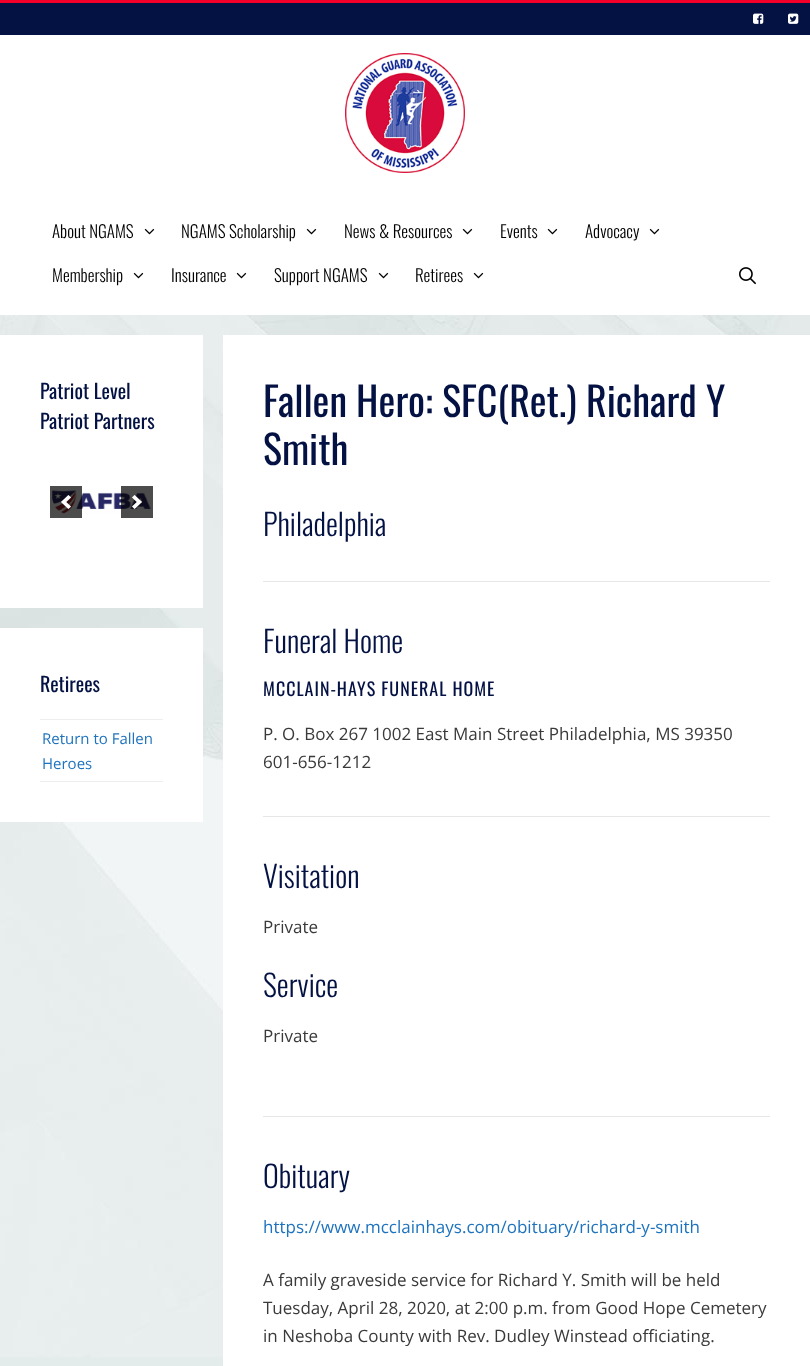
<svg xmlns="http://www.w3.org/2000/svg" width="810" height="1366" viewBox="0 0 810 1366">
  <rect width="100%" height="100%" fill="#e4ebeb"/>
  <image x="0" y="315" width="810" height="1043" href="img1.png"/>
  <rect x="0" y="3" width="810" height="32" fill="#031143"/>
  <rect x="0" y="0" width="810" height="3" fill="#f2002a"/>
  <image x="753" y="13" width="11" height="11" href="img2.png"/>
  <image x="788" y="13" width="11" height="11" href="img3.png"/>
  <rect x="0" y="35" width="810" height="280" fill="#ffffff"/>
  <image x="345" y="53" width="120" height="120" href="img4.png"/>
  <text x="52" y="238" font-family="Oswald" font-size="17" font-weight="300" fill="#000000">About NGAMS</text>
  <image x="144" y="228" width="11" height="7" href="img5.png"/>
  <text x="181" y="238" font-family="Oswald" font-size="17" font-weight="300" fill="#000000">NGAMS Scholarship</text>
  <image x="306" y="228" width="11" height="7" href="img5.png"/>
  <text x="344" y="238" font-family="Oswald" font-size="17" font-weight="300" fill="#000000">News &amp; Resources</text>
  <image x="462" y="228" width="11" height="7" href="img5.png"/>
  <text x="500" y="238" font-family="Oswald" font-size="17" font-weight="300" fill="#000000">Events</text>
  <image x="547" y="228" width="11" height="7" href="img5.png"/>
  <text x="585" y="238" font-family="Oswald" font-size="17" font-weight="300" fill="#000000">Advocacy</text>
  <image x="649" y="228" width="11" height="7" href="img5.png"/>
  <text x="52" y="282" font-family="Oswald" font-size="17" font-weight="300" fill="#000000">Membership</text>
  <image x="133" y="272" width="11" height="7" href="img5.png"/>
  <text x="171" y="282" font-family="Oswald" font-size="17" font-weight="300" fill="#000000">Insurance</text>
  <image x="236" y="272" width="11" height="7" href="img5.png"/>
  <text x="274" y="282" font-family="Oswald" font-size="17" font-weight="300" fill="#000000">Support NGAMS</text>
  <image x="378" y="272" width="11" height="7" href="img5.png"/>
  <text x="415" y="282" font-family="Oswald" font-size="17" font-weight="300" fill="#000000">Retirees</text>
  <image x="473" y="272" width="11" height="7" href="img5.png"/>
  <image x="739" y="267" width="17" height="18" href="img6.png"/>
  <rect x="0" y="335" width="203" height="273" fill="#ffffff"/>
  <text x="40" y="399" font-family="Oswald" font-size="20" fill="#031143">Patriot Level</text>
  <text x="40" y="429" font-family="Oswald" font-size="20" fill="#031143">Patriot Partners</text>
  <image x="52" y="490" width="100" height="24" href="img9.png"/>
  <rect x="50" y="486" width="32" height="32" fill="#000000" fill-opacity="0.7"/>
  <image x="61" y="495" width="10" height="14" href="img7.png"/>
  <rect x="121" y="486" width="32" height="32" fill="#000000" fill-opacity="0.7"/>
  <image x="132" y="495" width="10" height="14" href="img8.png"/>
  <rect x="0" y="628" width="203" height="194" fill="#ffffff"/>
  <text x="40" y="692" font-family="Oswald" font-size="20" fill="#031143">Retirees</text>
  <rect x="40" y="719" width="123" height="1" fill="#eeeeee"/>
  <rect x="40" y="781" width="123" height="1" fill="#eeeeee"/>
  <text x="42" y="744" font-family="Open Sans" font-size="15" fill="#1e73be">Return to Fallen</text>
  <text x="42" y="769" font-family="Open Sans" font-size="15" fill="#1e73be">Heroes</text>
  <rect x="223" y="335" width="587" height="1031" fill="#ffffff"/>
  <text x="263" y="417" font-family="Oswald" font-size="40" fill="#031143">Fallen Hero: SFC(Ret.) Richard Y</text>
  <text x="263" y="465" font-family="Oswald" font-size="40" fill="#031143">Smith</text>
  <text x="263" y="536" font-family="Oswald" font-size="30" font-weight="300" fill="#031143">Philadelphia</text>
  <rect x="263" y="581" width="507" height="1" fill="#e6e6e6"/>
  <text x="263" y="653" font-family="Oswald" font-size="30" font-weight="300" fill="#031143">Funeral Home</text>
  <text x="263" y="696" font-family="Oswald" font-size="18" letter-spacing="1" fill="#031143">MCCLAIN-HAYS FUNERAL HOME</text>
  <text x="263" y="740" font-family="Open Sans" font-size="17" fill="#3a3a3a">P. O. Box 267 1002 East Main Street Philadelphia, MS 39350</text>
  <text x="263" y="768" font-family="Open Sans" font-size="17" fill="#3a3a3a">601-656-1212</text>
  <rect x="263" y="816" width="507" height="1" fill="#e6e6e6"/>
  <text x="263" y="888" font-family="Oswald" font-size="30" font-weight="300" fill="#031143">Visitation</text>
  <text x="263" y="933" font-family="Open Sans" font-size="17" fill="#3a3a3a">Private</text>
  <text x="263" y="997" font-family="Oswald" font-size="30" font-weight="300" fill="#031143">Service</text>
  <text x="263" y="1042" font-family="Open Sans" font-size="17" fill="#3a3a3a">Private</text>
  <rect x="263" y="1116" width="507" height="1" fill="#e6e6e6"/>
  <text x="263" y="1188" font-family="Oswald" font-size="30" font-weight="300" fill="#031143">Obituary</text>
  <text x="263" y="1233" font-family="Open Sans" font-size="17" fill="#1e73be">https://www.mcclainhays.com/obituary/richard-y-smith</text>
  <text x="263" y="1286" font-family="Open Sans" font-size="17" fill="#3a3a3a">A family graveside service for Richard Y. Smith will be held</text>
  <text x="263" y="1314" font-family="Open Sans" font-size="17" fill="#3a3a3a">Tuesday, April 28, 2020, at 2:00 p.m. from Good Hope Cemetery</text>
  <text x="263" y="1342" font-family="Open Sans" font-size="17" fill="#3a3a3a">in Neshoba County with Rev. Dudley Winstead officiating.</text>
</svg>
